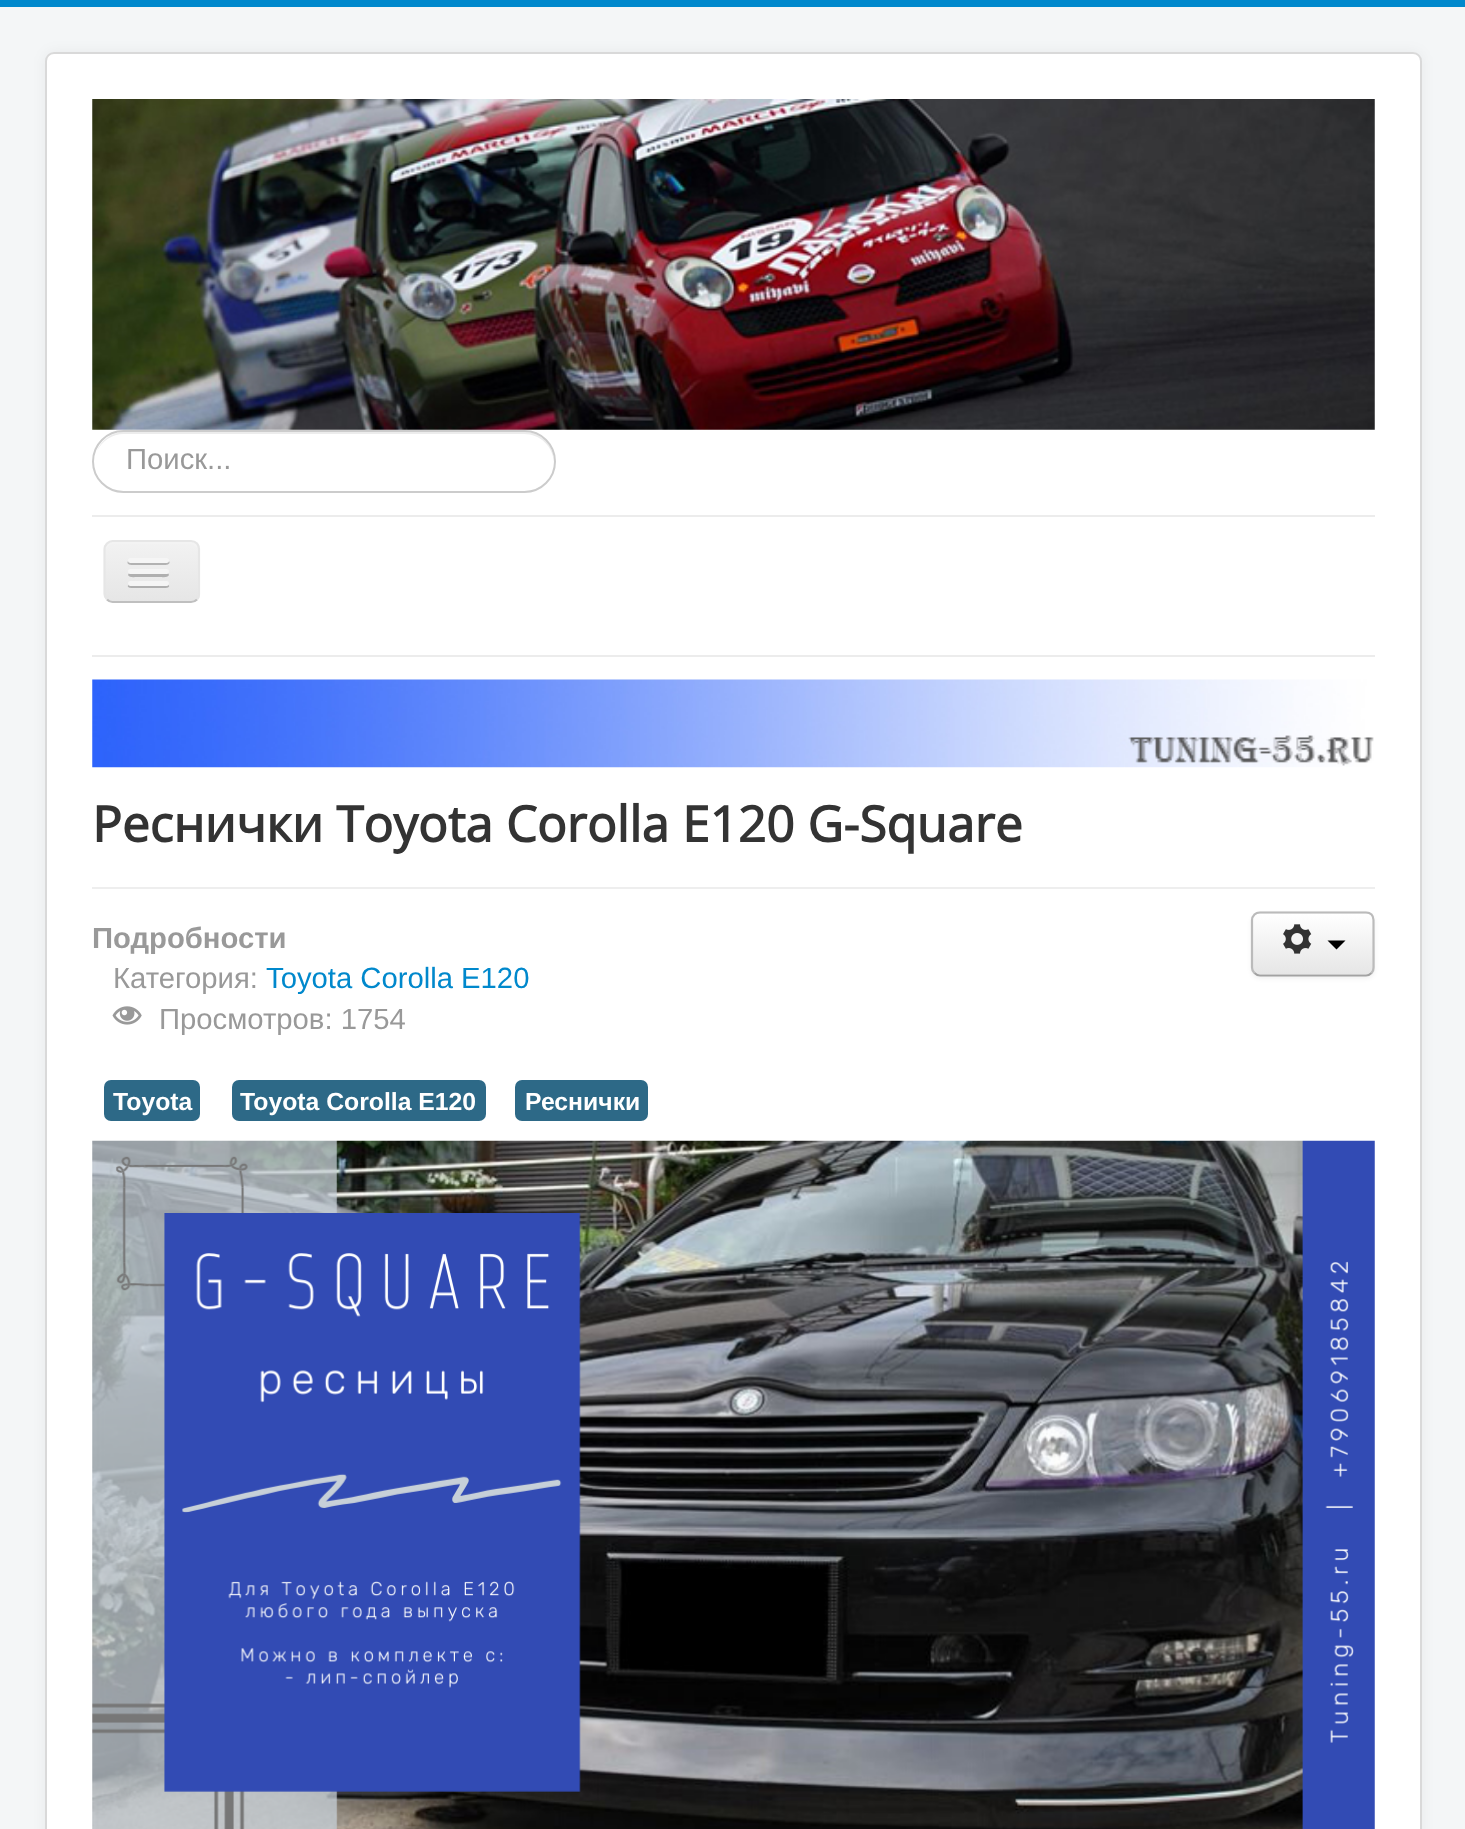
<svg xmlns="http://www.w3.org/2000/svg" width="1465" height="1829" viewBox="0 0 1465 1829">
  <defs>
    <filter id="blur1" x="-50%" y="-200%" width="200%" height="500%"><feGaussianBlur stdDeviation="7"/></filter>
    <clipPath id="clip1"><rect x="104" y="540" width="96" height="63" rx="9"/></clipPath>
    <linearGradient id="g1" gradientUnits="userSpaceOnUse" x1="152" y1="542" x2="152" y2="601"><stop offset="0" stop-color="#f2f2f2"/><stop offset="1" stop-color="#e6e6e6"/></linearGradient>
    <filter id="blur2" x="-50%" y="-200%" width="200%" height="500%"><feGaussianBlur stdDeviation="2"/></filter>
    <clipPath id="clip2"><rect x="1251" y="911" width="124" height="66" rx="9"/></clipPath>
    <linearGradient id="g2" gradientUnits="userSpaceOnUse" x1="1313" y1="914" x2="1313" y2="974"><stop offset="0" stop-color="#ffffff"/><stop offset="1" stop-color="#e6e6e6"/></linearGradient>
  </defs>
  <rect width="100%" height="100%" fill="#f4f6f7"/>
  <rect x="0" y="0" width="1465" height="7" fill="#0088cc"/>
  <rect x="45" y="52" width="1377" height="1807" rx="9" fill="#000000" fill-opacity="0.05" filter="url(#blur1)"/>
  <rect x="45" y="52" width="1377" height="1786" rx="9" fill="#ffffff"/>
  <rect x="46" y="53" width="1375" height="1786" rx="8" fill="none" stroke="#000000" stroke-opacity="0.15" stroke-width="2"/>
  <image x="92" y="99" width="1283" height="331" href="img1.png"/>
  <path d="M124 434H524C540 434 553 446 554 463V462C554 445 541 432 524 432H124C112 432 101 440 97 451C102 441 112 434 124 434Z" fill="#ececec"/>
  <rect x="93" y="431" width="462" height="61" rx="30.5" fill="none" stroke="#cccccc" stroke-width="2"/>
  <text x="126" y="469" font-family="Liberation Sans" font-size="29.25" fill="#999999">Поиск...</text>
  <rect x="92" y="515" width="1283" height="2" fill="#ececec"/>
  <rect x="92" y="655" width="1283" height="2" fill="#ececec"/>
  <g clip-path="url(#clip1)">
    <rect x="104" y="542" width="96" height="59" fill="url(#g1)"/>
  </g>
  <path d="M112 544H191C195 544 198 548 198 551C198 539 187 542 178 542H126C117 542 106 539 106 551C106 548 109 544 112 544Z" fill="#f3f3f3"/>
  <path d="M197 599.5C195.5 601 193.5 602 191 602H112.5C110.5 602 108.5 601 107 599.5" fill="none" stroke="#bfbfbf" stroke-width="2.2"/>
  <path d="M107 599.5C105.5 598 104.5 596 104.5 594V549C104.5 547 105.5 545 107 543.5C108.5 542 110.5 541 112.5 541H191C193.5 541 195.5 542 197 543.5C198.5 545 199 547 199 549V594C199 596 198.5 598 197 599.5" fill="none" stroke="#e6e6e6" stroke-width="2.2"/>
  <path d="M128 561C125 566 136 565 136 565H160C161 565 172 566 169 561C168 562 167 562 166 562H130C130 562 129 562 128 561Z" fill="#b2b2b2"/>
  <rect x="128" y="558" width="41" height="5" rx="2.5" fill="#f5f5f5"/>
  <path d="M129 573L128 575C129 578 135 577 136 577H160C162 577 168 578 169 575L168 573L167 574H130Z" fill="#b0b0b0"/>
  <rect x="128" y="569" width="41" height="5" rx="2.5" fill="#f5f5f5"/>
  <path d="M129 584C124 589 136 588 136 588H160C161 588 173 589 168 584L167 585H130Z" fill="#afafaf"/>
  <rect x="128" y="581" width="41" height="5" rx="2.5" fill="#f5f5f5"/>
  <image x="92" y="679" width="1282" height="89" href="img2.png"/>
  <rect x="92" y="887" width="1283" height="2" fill="#eeeeee"/>
  <text x="92" y="842" font-family="Open Sans" font-size="49.5" font-weight="bold" fill="#333333">Реснички Toyota Corolla E120 G-Square</text>
  <text x="92" y="948" font-family="Liberation Sans" font-size="29.25" font-weight="bold" fill="#999999">Подробности</text>
  <text x="113" y="988" font-family="Liberation Sans" font-size="29.25" fill="#999999">Категория:</text>
  <text x="266" y="988" font-family="Liberation Sans" font-size="29.25" fill="#0088cc">Toyota Corolla E120</text>
  <image x="112" y="1006" width="30" height="19" href="img3.png"/>
  <text x="159" y="1029" font-family="Liberation Sans" font-size="29.25" fill="#999999">Просмотров: 1754</text>
  <rect x="1251" y="914" width="124" height="65" rx="9" fill="#000000" fill-opacity="0.05" filter="url(#blur2)"/>
  <rect x="1251" y="911" width="124" height="66" rx="9" fill="#f5f5f5"/>
  <g clip-path="url(#clip2)">
    <rect x="1251" y="914" width="124" height="60" fill="url(#g2)"/>
  </g>
  <path d="M1260 916H1348C1375 916 1372 913 1372 938V971C1373 970 1373 968 1373 967V921C1373 917 1370 914 1366 914H1260C1256 914 1253 917 1253 921V922C1253 919 1256 916 1260 916Z" fill="#ffffff" fill-opacity="0.2"/>
  <path d="M1371.5 973C1370 974.5 1368 975.5 1366 975.5H1260C1258 975.5 1256 974.5 1254.5 973" fill="none" stroke="#a2a2a2" stroke-width="2.2"/>
  <path d="M1254.5 973C1253 971.5 1252 969.5 1252 967.5V920C1252 918 1253 916 1254.5 914.5C1256 913 1258 912.5 1260 912.5H1366C1368 912.5 1370 913 1371.5 914.5C1373 916 1373.5 918 1373.5 920V967.5C1373.5 969.5 1373 971.5 1371.5 973" fill="none" stroke="#bbbbbb" stroke-width="2.2"/>
  <image x="1283" y="924" width="29" height="30" href="img4.png"/>
  <path d="M1327.5 940.5H1345.5L1336.5 949.5Z" fill="#000000"/>
  <rect x="104" y="1080" width="96" height="41" rx="7" fill="#2d6987"/>
  <text x="113" y="1110" font-family="Liberation Sans" font-size="24.75" font-weight="bold" fill="#ffffff">Toyota</text>
  <rect x="232" y="1080" width="254" height="41" rx="7" fill="#2d6987"/>
  <text x="240" y="1110" font-family="Liberation Sans" font-size="24.75" font-weight="bold" fill="#ffffff">Toyota Corolla E120</text>
  <rect x="515" y="1080" width="133" height="41" rx="7" fill="#2d6987"/>
  <text x="525" y="1110" font-family="Liberation Sans" font-size="24.75" font-weight="bold" fill="#ffffff">Реснички</text>
  <image x="92" y="1140" width="1283" height="689" href="img5.png"/>
</svg>
